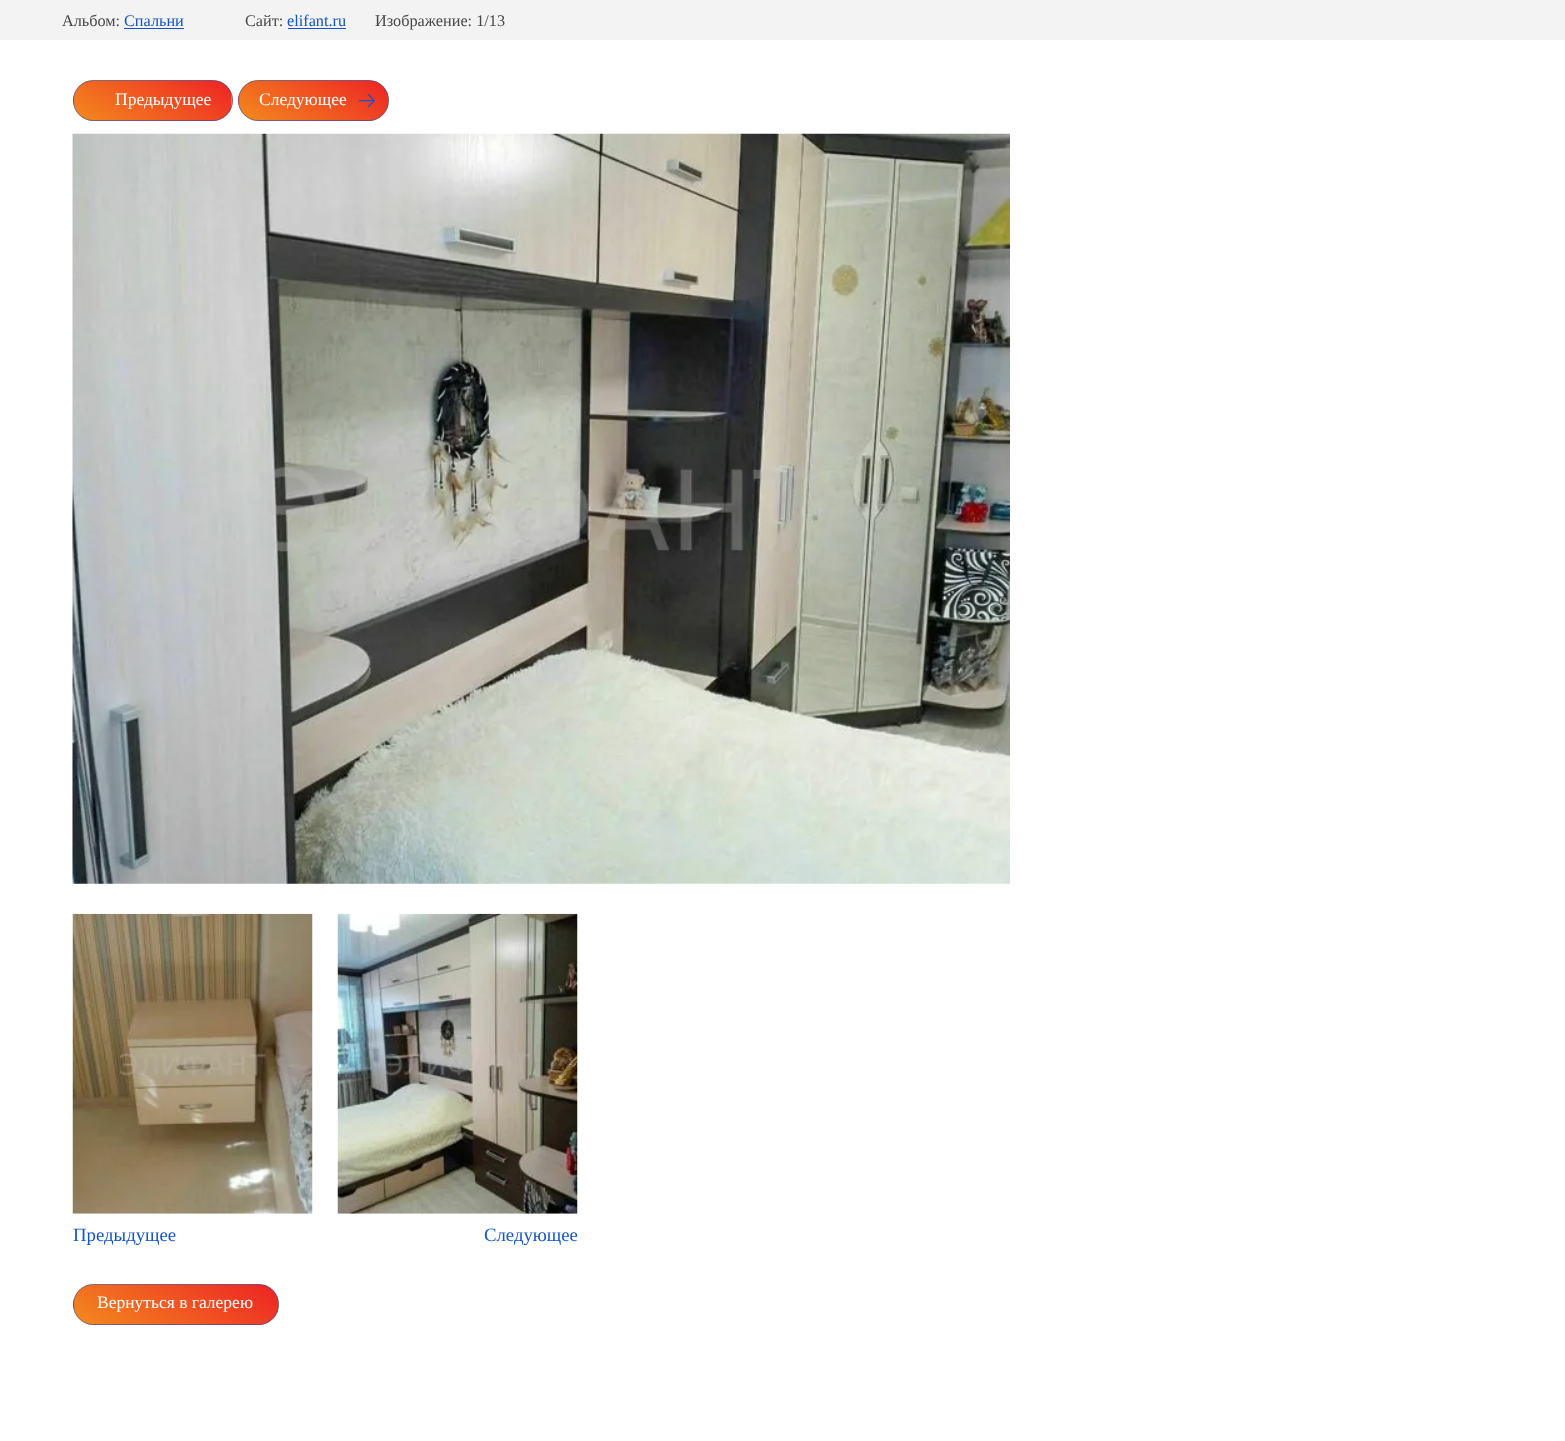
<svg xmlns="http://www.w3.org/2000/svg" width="1565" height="1441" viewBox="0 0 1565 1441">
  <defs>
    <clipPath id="clip1"><rect x="73" y="80" width="160" height="41" rx="20.5"/></clipPath>
    <linearGradient id="g1" gradientUnits="userSpaceOnUse" x1="183" y1="13" x2="122" y2="111"><stop offset="0" stop-color="#ed2324"/><stop offset="1" stop-color="#f48a1e"/></linearGradient>
    <linearGradient id="g2" gradientUnits="userSpaceOnUse" x1="26" y1="51" x2="-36" y2="150"><stop offset="0" stop-color="#ed2324"/><stop offset="1" stop-color="#f48a1e"/></linearGradient>
    <linearGradient id="g3" gradientUnits="userSpaceOnUse" x1="183" y1="51" x2="122" y2="150"><stop offset="0" stop-color="#ed2324"/><stop offset="1" stop-color="#f48a1e"/></linearGradient>
    <linearGradient id="g4" gradientUnits="userSpaceOnUse" x1="341" y1="51" x2="279" y2="150"><stop offset="0" stop-color="#ed2324"/><stop offset="1" stop-color="#f48a1e"/></linearGradient>
    <linearGradient id="g5" gradientUnits="userSpaceOnUse" x1="183" y1="90" x2="122" y2="189"><stop offset="0" stop-color="#ed2324"/><stop offset="1" stop-color="#f48a1e"/></linearGradient>
    <clipPath id="clip2"><rect x="238" y="80" width="151" height="41" rx="20.5"/></clipPath>
    <linearGradient id="g6" gradientUnits="userSpaceOnUse" x1="343" y1="15" x2="284" y2="109"><stop offset="0" stop-color="#ed2324"/><stop offset="1" stop-color="#f48a1e"/></linearGradient>
    <linearGradient id="g7" gradientUnits="userSpaceOnUse" x1="194" y1="53" x2="135" y2="148"><stop offset="0" stop-color="#ed2324"/><stop offset="1" stop-color="#f48a1e"/></linearGradient>
    <linearGradient id="g8" gradientUnits="userSpaceOnUse" x1="343" y1="53" x2="284" y2="148"><stop offset="0" stop-color="#ed2324"/><stop offset="1" stop-color="#f48a1e"/></linearGradient>
    <linearGradient id="g9" gradientUnits="userSpaceOnUse" x1="491" y1="53" x2="432" y2="148"><stop offset="0" stop-color="#ed2324"/><stop offset="1" stop-color="#f48a1e"/></linearGradient>
    <linearGradient id="g10" gradientUnits="userSpaceOnUse" x1="343" y1="92" x2="284" y2="187"><stop offset="0" stop-color="#ed2324"/><stop offset="1" stop-color="#f48a1e"/></linearGradient>
    <clipPath id="clip3"><rect x="73" y="1284" width="206" height="41" rx="20.5"/></clipPath>
    <linearGradient id="g11" gradientUnits="userSpaceOnUse" x1="213" y1="1206" x2="138" y2="1325"><stop offset="0" stop-color="#ed2324"/><stop offset="1" stop-color="#f48a1e"/></linearGradient>
    <linearGradient id="g12" gradientUnits="userSpaceOnUse" x1="9" y1="1245" x2="-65" y2="1364"><stop offset="0" stop-color="#ed2324"/><stop offset="1" stop-color="#f48a1e"/></linearGradient>
    <linearGradient id="g13" gradientUnits="userSpaceOnUse" x1="213" y1="1245" x2="138" y2="1364"><stop offset="0" stop-color="#ed2324"/><stop offset="1" stop-color="#f48a1e"/></linearGradient>
    <linearGradient id="g14" gradientUnits="userSpaceOnUse" x1="417" y1="1245" x2="342" y2="1364"><stop offset="0" stop-color="#ed2324"/><stop offset="1" stop-color="#f48a1e"/></linearGradient>
    <linearGradient id="g15" gradientUnits="userSpaceOnUse" x1="213" y1="1283" x2="138" y2="1403"><stop offset="0" stop-color="#ed2324"/><stop offset="1" stop-color="#f48a1e"/></linearGradient>
  </defs>
  <rect width="100%" height="100%" fill="#ffffff"/>
  <rect x="0" y="0" width="1565" height="40" fill="#f3f3f3"/>
  <text x="62" y="26" font-family="Liberation Serif" font-size="16.25" fill="#484848">Альбом:</text>
  <text x="124" y="26" font-family="Liberation Serif" font-size="16.25" fill="#1155cc">Спальни</text>
  <rect x="124" y="28" width="60" height="1" fill="#1155cc"/>
  <text x="245" y="26" font-family="Liberation Serif" font-size="16.25" fill="#484848">Сайт:</text>
  <text x="287" y="26" font-family="Liberation Serif" font-size="16.25" fill="#1155cc">elifant.ru</text>
  <rect x="288" y="28" width="58" height="1" fill="#1155cc"/>
  <text x="375" y="26" font-family="Liberation Serif" font-size="16.25" fill="#484848">Изображение: 1/13</text>
  <g clip-path="url(#clip1)">
    <rect x="87" y="80" width="132" height="1" fill="url(#g1)"/>
    <rect x="73" y="94" width="1" height="13" fill="url(#g2)"/>
    <rect x="74" y="81" width="157" height="39" fill="url(#g3)"/>
    <rect x="231" y="92" width="2" height="17" fill="url(#g4)"/>
    <rect x="87" y="120" width="132" height="1" fill="url(#g5)"/>
  </g>
  <rect x="73.5" y="80.5" width="159" height="40" rx="20" fill="none" stroke="#1155cc" stroke-opacity="0.5"/>
  <text x="115" y="105" font-family="Liberation Serif" font-size="17.5" fill="#ffffff">Предыдущее</text>
  <g clip-path="url(#clip2)">
    <rect x="252" y="80" width="123" height="1" fill="url(#g6)"/>
    <rect x="238" y="94" width="1" height="13" fill="url(#g7)"/>
    <rect x="239" y="81" width="149" height="39" fill="url(#g8)"/>
    <rect x="388" y="94" width="1" height="13" fill="url(#g9)"/>
    <rect x="252" y="120" width="123" height="1" fill="url(#g10)"/>
  </g>
  <rect x="238.5" y="80.5" width="150" height="40" rx="20" fill="none" stroke="#1155cc" stroke-opacity="0.5"/>
  <text x="259" y="105" font-family="Liberation Serif" font-size="17.5" fill="#ffffff">Следующее</text>
  <image x="359" y="94" width="16" height="14" href="img1.png"/>
  <image x="72" y="133" width="938" height="751" href="img2.png"/>
  <image x="72" y="913" width="241" height="301" href="img3.png"/>
  <text x="73" y="1241" font-family="Liberation Serif" font-size="18.75" fill="#1155cc">Предыдущее</text>
  <image x="337" y="913" width="241" height="301" href="img4.png"/>
  <text x="484" y="1241" font-family="Liberation Serif" font-size="18.75" fill="#1155cc">Следующее</text>
  <g clip-path="url(#clip3)">
    <rect x="87" y="1284" width="178" height="1" fill="url(#g11)"/>
    <rect x="73" y="1298" width="1" height="13" fill="url(#g12)"/>
    <rect x="74" y="1285" width="204" height="39" fill="url(#g13)"/>
    <rect x="278" y="1298" width="1" height="13" fill="url(#g14)"/>
    <rect x="87" y="1324" width="178" height="1" fill="url(#g15)"/>
  </g>
  <rect x="73.5" y="1284.5" width="205" height="40" rx="20" fill="none" stroke="#1155cc" stroke-opacity="0.5"/>
  <text x="97" y="1308" font-family="Liberation Serif" font-size="17.5" fill="#ffffff">Вернуться в галерею</text>
</svg>
